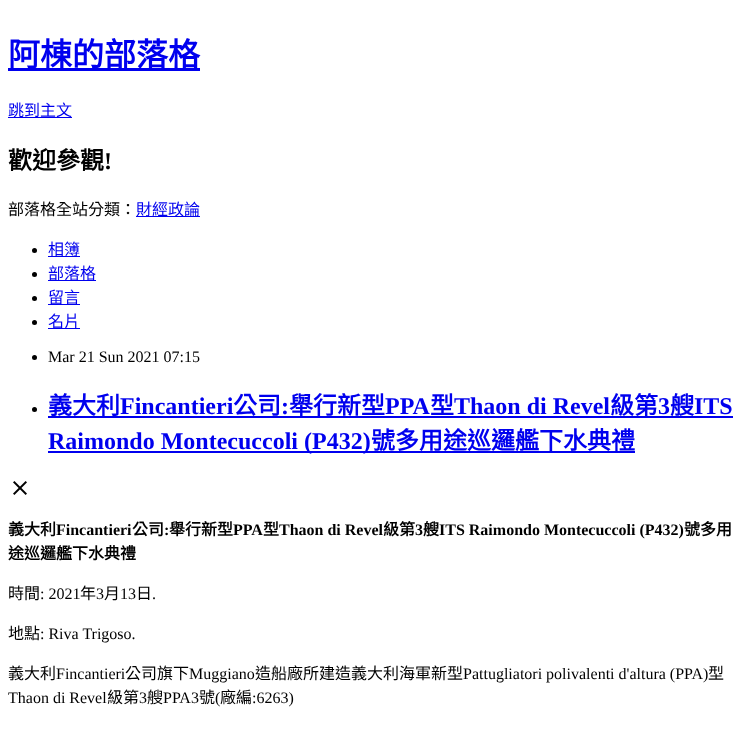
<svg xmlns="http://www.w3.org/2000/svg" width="741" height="736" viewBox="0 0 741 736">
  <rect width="100%" height="100%" fill="#ffffff"/>
  <rect x="8" y="68" width="192" height="3" fill="#0000ee"/>
  <text x="8" y="66" font-family="Noto Sans CJK TC" font-size="32" font-weight="bold" fill="#0000ee">阿棟的部落格</text>
  <rect x="8" y="117" width="64" height="1" fill="#0000ee"/>
  <text x="8" y="116" font-family="Noto Sans CJK TC" font-size="16" fill="#0000ee">跳到主文</text>
  <text x="8" y="169" font-family="Noto Sans CJK TC" font-size="24" font-weight="bold" fill="#000000">歡迎參觀</text>
  <text x="104" y="169" font-family="Liberation Serif" font-size="24" font-weight="bold" fill="#000000">!</text>
  <text x="8" y="215" font-family="Noto Sans CJK TC" font-size="16" fill="#000000">部落格全站分類：</text>
  <rect x="136" y="216" width="64" height="1" fill="#0000ee"/>
  <text x="136" y="215" font-family="Noto Sans CJK TC" font-size="16" fill="#0000ee">財經政論</text>
  <circle cx="34.5" cy="250.5" r="2.5" fill="#000000"/>
  <rect x="48" y="256" width="32" height="1" fill="#0000ee"/>
  <text x="48" y="255" font-family="Noto Sans CJK TC" font-size="16" fill="#0000ee">相簿</text>
  <circle cx="34.5" cy="274.5" r="2.5" fill="#000000"/>
  <rect x="48" y="280" width="48" height="1" fill="#0000ee"/>
  <text x="48" y="279" font-family="Noto Sans CJK TC" font-size="16" fill="#0000ee">部落格</text>
  <circle cx="34.5" cy="298.5" r="2.5" fill="#000000"/>
  <rect x="48" y="304" width="32" height="1" fill="#0000ee"/>
  <text x="48" y="303" font-family="Noto Sans CJK TC" font-size="16" fill="#0000ee">留言</text>
  <circle cx="34.5" cy="322.5" r="2.5" fill="#000000"/>
  <rect x="48" y="328" width="32" height="1" fill="#0000ee"/>
  <text x="48" y="327" font-family="Noto Sans CJK TC" font-size="16" fill="#0000ee">名片</text>
  <circle cx="34.5" cy="357.5" r="2.5" fill="#000000"/>
  <text x="48" y="362" font-family="Liberation Serif" font-size="16" fill="#000000">Mar 21 Sun 2021 07:15</text>
  <circle cx="34.5" cy="409.5" r="2.5" fill="#000000"/>
  <text x="48" y="414" font-family="Noto Sans CJK TC" font-size="24" font-weight="bold" fill="#0000ee">義大利</text>
  <text x="120" y="414" font-family="Liberation Serif" font-size="24" font-weight="bold" fill="#0000ee">Fincantieri</text>
  <text x="233" y="414" font-family="Noto Sans CJK TC" font-size="24" font-weight="bold" fill="#0000ee">公司</text>
  <text x="281" y="414" font-family="Liberation Serif" font-size="24" font-weight="bold" fill="#0000ee">:</text>
  <rect x="48" y="416" width="685" height="2" fill="#0000ee"/>
  <text x="289" y="414" font-family="Noto Sans CJK TC" font-size="24" font-weight="bold" fill="#0000ee">舉行新型</text>
  <text x="385" y="414" font-family="Liberation Serif" font-size="24" font-weight="bold" fill="#0000ee">PPA</text>
  <text x="430" y="414" font-family="Noto Sans CJK TC" font-size="24" font-weight="bold" fill="#0000ee">型</text>
  <text x="454" y="414" font-family="Liberation Serif" font-size="24" font-weight="bold" fill="#0000ee">Thaon di Revel</text>
  <text x="610" y="414" font-family="Noto Sans CJK TC" font-size="24" font-weight="bold" fill="#0000ee">級第</text>
  <text x="658" y="414" font-family="Liberation Serif" font-size="24" font-weight="bold" fill="#0000ee">3</text>
  <text x="670" y="414" font-family="Noto Sans CJK TC" font-size="24" font-weight="bold" fill="#0000ee">艘</text>
  <text x="694" y="414" font-family="Liberation Serif" font-size="24" font-weight="bold" fill="#0000ee">ITS</text>
  <rect x="48" y="451" width="587" height="2" fill="#0000ee"/>
  <text x="48" y="449" font-family="Liberation Serif" font-size="24" font-weight="bold" fill="#0000ee">Raimondo Montecuccoli (P432)</text>
  <text x="371" y="449" font-family="Noto Sans CJK TC" font-size="24" font-weight="bold" fill="#0000ee">號多用途巡邏艦下水典禮</text>
  <image x="13" y="481" width="14" height="14" href="img1.png"/>
  <text x="8" y="535" font-family="Noto Sans CJK TC" font-size="16" font-weight="bold" fill="#000000">義大利</text>
  <text x="56" y="535" font-family="Liberation Serif" font-size="16" font-weight="bold" fill="#000000">Fincantieri</text>
  <text x="132" y="535" font-family="Noto Sans CJK TC" font-size="16" font-weight="bold" fill="#000000">公司</text>
  <text x="164" y="535" font-family="Liberation Serif" font-size="16" font-weight="bold" fill="#000000">:</text>
  <text x="169" y="535" font-family="Noto Sans CJK TC" font-size="16" font-weight="bold" fill="#000000">舉行新型</text>
  <text x="233" y="535" font-family="Liberation Serif" font-size="16" font-weight="bold" fill="#000000">PPA</text>
  <text x="263" y="535" font-family="Noto Sans CJK TC" font-size="16" font-weight="bold" fill="#000000">型</text>
  <text x="279" y="535" font-family="Liberation Serif" font-size="16" font-weight="bold" fill="#000000">Thaon di Revel</text>
  <text x="383" y="535" font-family="Noto Sans CJK TC" font-size="16" font-weight="bold" fill="#000000">級第</text>
  <text x="415" y="535" font-family="Liberation Serif" font-size="16" font-weight="bold" fill="#000000">3</text>
  <text x="423" y="535" font-family="Noto Sans CJK TC" font-size="16" font-weight="bold" fill="#000000">艘</text>
  <text x="439" y="535" font-family="Liberation Serif" font-size="16" font-weight="bold" fill="#000000">ITS Raimondo Montecuccoli (P432)</text>
  <text x="684" y="535" font-family="Noto Sans CJK TC" font-size="16" font-weight="bold" fill="#000000">號多用</text>
  <text x="8" y="559" font-family="Noto Sans CJK TC" font-size="16" font-weight="bold" fill="#000000">途巡邏艦下水典禮</text>
  <text x="8" y="599" font-family="Noto Sans CJK TC" font-size="16" fill="#000000">時間</text>
  <text x="40" y="599" font-family="Liberation Serif" font-size="16" fill="#000000">: 2021</text>
  <text x="80" y="599" font-family="Noto Sans CJK TC" font-size="16" fill="#000000">年</text>
  <text x="96" y="599" font-family="Liberation Serif" font-size="16" fill="#000000">3</text>
  <text x="104" y="599" font-family="Noto Sans CJK TC" font-size="16" fill="#000000">月</text>
  <text x="120" y="599" font-family="Liberation Serif" font-size="16" fill="#000000">13</text>
  <text x="136" y="599" font-family="Noto Sans CJK TC" font-size="16" fill="#000000">日</text>
  <text x="152" y="599" font-family="Liberation Serif" font-size="16" fill="#000000">.</text>
  <text x="8" y="639" font-family="Noto Sans CJK TC" font-size="16" fill="#000000">地點</text>
  <text x="40" y="639" font-family="Liberation Serif" font-size="16" fill="#000000">: Riva Trigoso.</text>
  <text x="8" y="679" font-family="Noto Sans CJK TC" font-size="16" fill="#000000">義大利</text>
  <text x="56" y="679" font-family="Liberation Serif" font-size="16" fill="#000000">Fincantieri</text>
  <text x="125" y="679" font-family="Noto Sans CJK TC" font-size="16" fill="#000000">公司旗下</text>
  <text x="189" y="679" font-family="Liberation Serif" font-size="16" fill="#000000">Muggiano</text>
  <text x="255" y="679" font-family="Noto Sans CJK TC" font-size="16" fill="#000000">造船廠所建造義大利海軍新型</text>
  <text x="463" y="679" font-family="Liberation Serif" font-size="16" fill="#000000">Pattugliatori polivalenti d'altura (PPA)</text>
  <text x="708" y="679" font-family="Noto Sans CJK TC" font-size="16" fill="#000000">型</text>
  <text x="8" y="703" font-family="Liberation Serif" font-size="16" fill="#000000">Thaon di Revel</text>
  <text x="107" y="703" font-family="Noto Sans CJK TC" font-size="16" fill="#000000">級第</text>
  <text x="139" y="703" font-family="Liberation Serif" font-size="16" fill="#000000">3</text>
  <text x="147" y="703" font-family="Noto Sans CJK TC" font-size="16" fill="#000000">艘</text>
  <text x="163" y="703" font-family="Liberation Serif" font-size="16" fill="#000000">PPA3</text>
  <text x="199" y="703" font-family="Noto Sans CJK TC" font-size="16" fill="#000000">號</text>
  <text x="215" y="703" font-family="Liberation Serif" font-size="16" fill="#000000">(</text>
  <text x="220" y="703" font-family="Noto Sans CJK TC" font-size="16" fill="#000000">廠編</text>
  <text x="252" y="703" font-family="Liberation Serif" font-size="16" fill="#000000">:6263)</text>
</svg>
